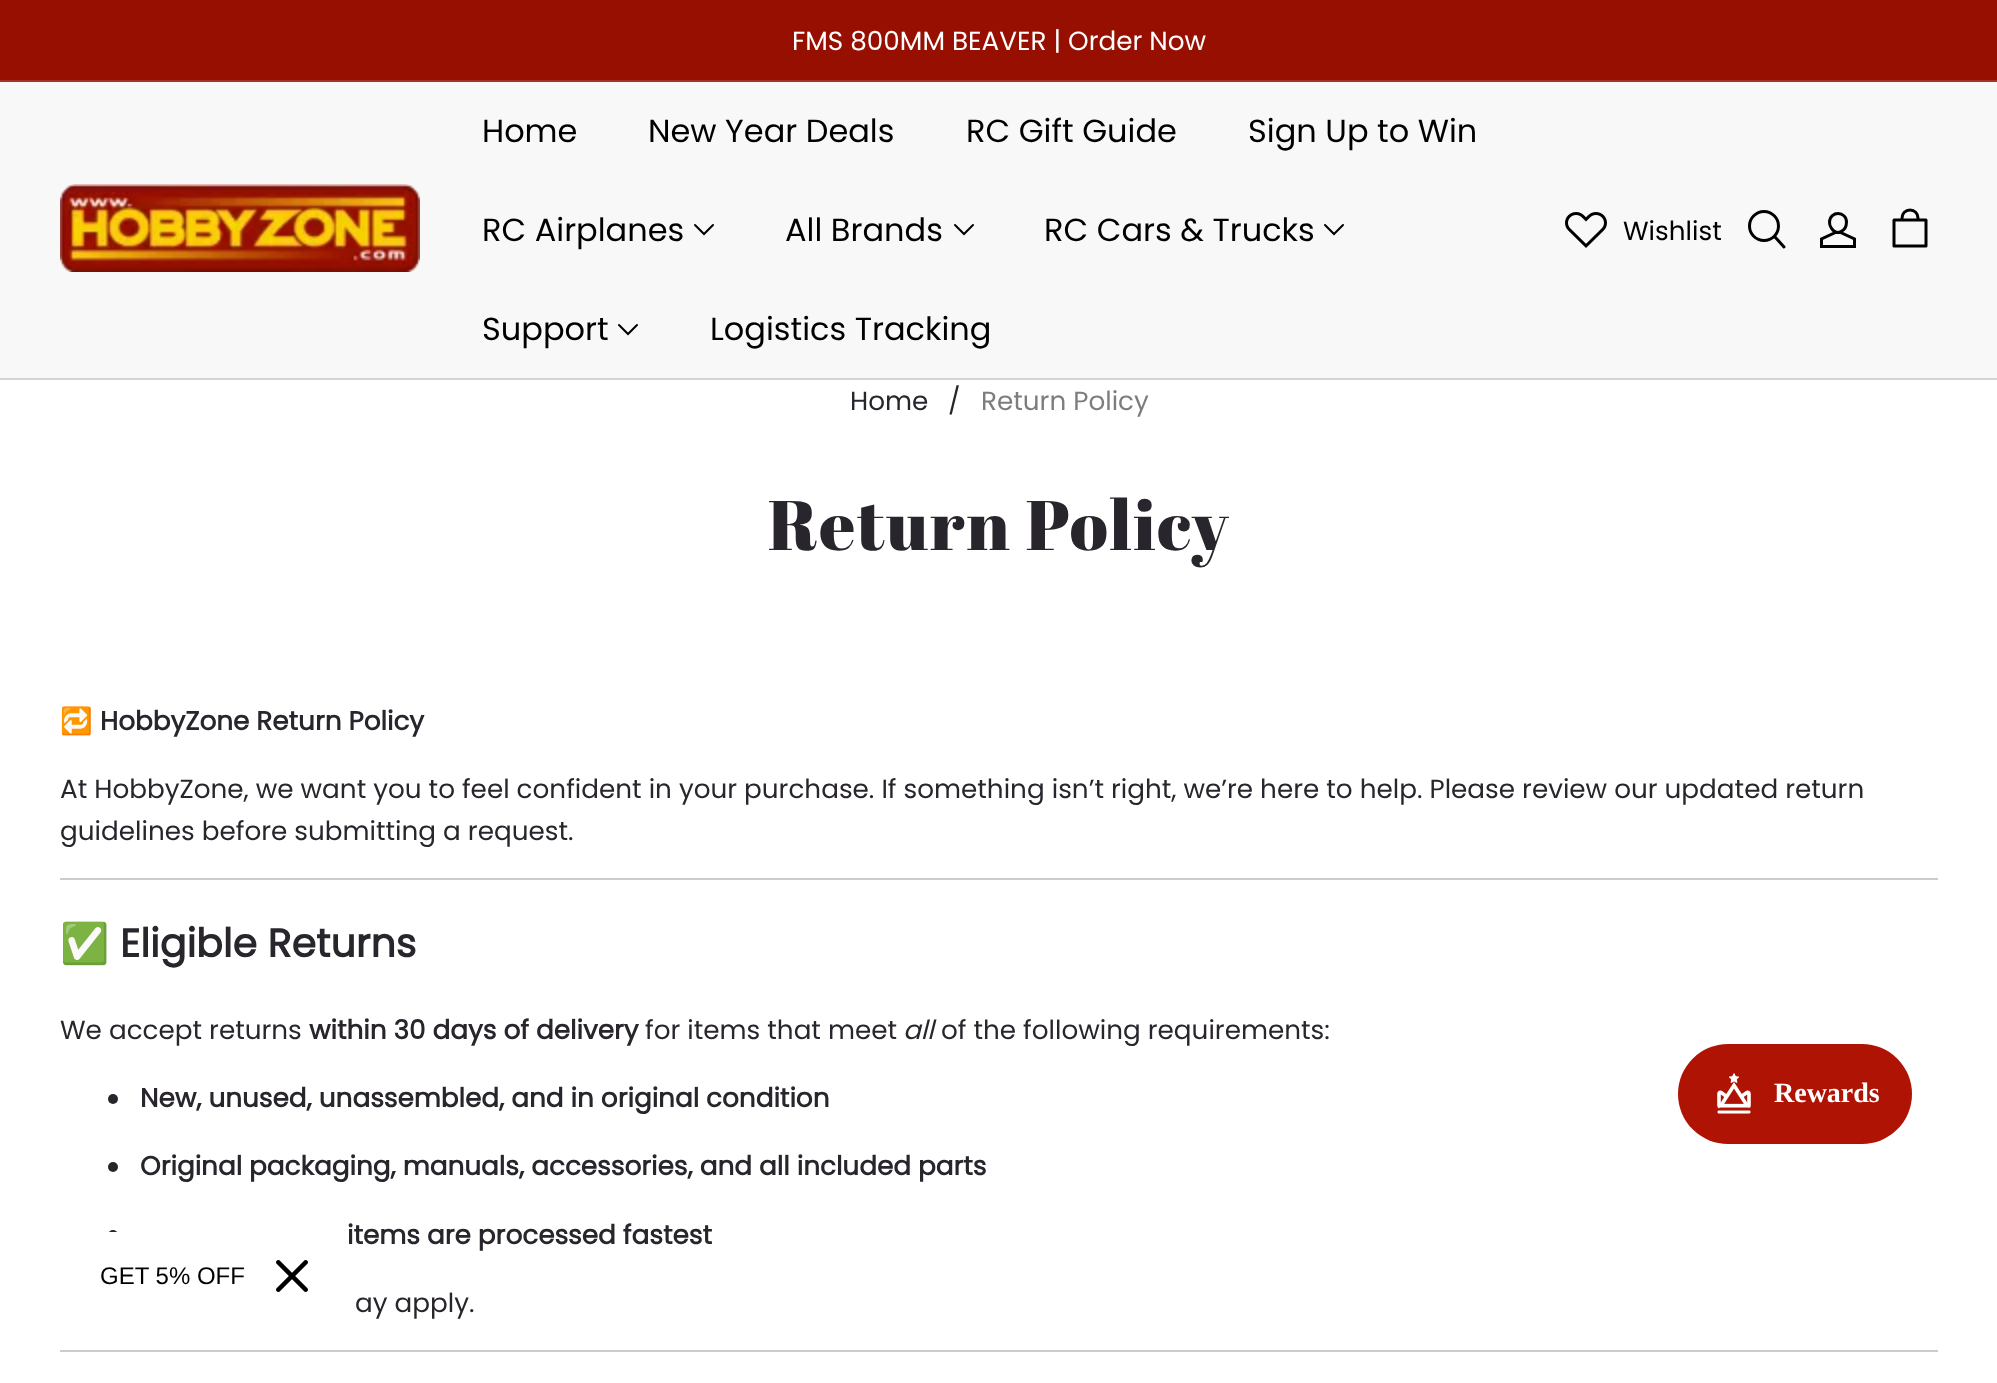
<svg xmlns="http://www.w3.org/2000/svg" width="1997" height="1383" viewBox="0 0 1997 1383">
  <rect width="100%" height="100%" fill="#ffffff"/>
  <rect x="0" y="0" width="1997" height="80" fill="#970f00"/>
  <text x="792" y="50" font-family="Poppins" font-size="26.25" fill="#ffffff">FMS 800MM BEAVER | Order Now</text>
  <rect x="0" y="80" width="1997" height="2" fill="#a73326"/>
  <rect x="0" y="82" width="1997" height="296" fill="#f8f8f8"/>
  <image x="60" y="184" width="360" height="88" href="img1.png"/>
  <text x="482" y="142" font-family="Poppins" font-size="32" fill="#000000">Home</text>
  <text x="648" y="142" font-family="Poppins" font-size="32" fill="#000000">New Year Deals</text>
  <text x="966" y="142" font-family="Poppins" font-size="32" fill="#000000">RC Gift Guide</text>
  <text x="1248" y="142" font-family="Poppins" font-size="32" fill="#000000">Sign Up to Win</text>
  <text x="482" y="241" font-family="Poppins" font-size="32" fill="#000000">RC Airplanes</text>
  <path d="M695 225L704 234L713 225" fill="none" stroke="#000000" stroke-width="2" stroke-linecap="round"/>
  <text x="785" y="241" font-family="Poppins" font-size="32" fill="#000000">All Brands</text>
  <path d="M955 225L964 234L973 225" fill="none" stroke="#000000" stroke-width="2" stroke-linecap="round"/>
  <text x="1044" y="241" font-family="Poppins" font-size="32" fill="#000000">RC Cars &amp; Trucks</text>
  <path d="M1325 225L1334 234L1343 225" fill="none" stroke="#000000" stroke-width="2" stroke-linecap="round"/>
  <text x="482" y="340" font-family="Poppins" font-size="32" fill="#000000">Support</text>
  <path d="M619 325L628 334L637 325" fill="none" stroke="#000000" stroke-width="2" stroke-linecap="round"/>
  <text x="710" y="340" font-family="Poppins" font-size="32" fill="#000000">Logistics Tracking</text>
  <image x="1565" y="212" width="42" height="36" href="img2.png"/>
  <text x="1623" y="240" font-family="Poppins" font-size="26.25" fill="#000000">Wishlist</text>
  <circle cx="1764" cy="226" r="14.5" fill="none" stroke="#000000" stroke-width="3"/>
  <path d="M1775 237L1784 247" fill="none" stroke="#000000" stroke-width="3" stroke-linecap="round"/>
  <path d="M1846.5 222C1846.5 231 1836.5 237 1831 227.5C1830 226 1829.5 224 1829.5 222C1830 210.5 1846.5 211 1846.5 222ZM1821.5 246.5V239L1835.5 232.5H1840.5L1854.5 239V246.5Z" fill="none" stroke="#000000" stroke-width="3"/>
  <path d="M1894 246V220H1926V246ZM1902 220V218C1902 213.5 1905.5 210 1910 210C1914.5 210 1918 213.5 1918 218V220" fill="none" stroke="#000000" stroke-width="3" stroke-linecap="round" stroke-linejoin="round"/>
  <rect x="0" y="378" width="1997" height="2" fill="#d3d3d3"/>
  <text x="850" y="410" font-family="Poppins" font-size="26.25" fill="#29252c">Home</text>
  <text x="948" y="410" font-family="Poppins" font-size="26.25" fill="#29252c">/</text>
  <text x="981" y="410" font-family="Poppins" font-size="26.25" fill="#7f7c80">Return Policy</text>
  <text x="768" y="550" font-family="Abril Fatface" font-size="70" letter-spacing="1.75" fill="#29252c">Return Policy</text>
  <text x="60" y="730" font-family="Noto Color Emoji" font-size="26.25" fill="#29252c">🔁</text>
  <text x="100" y="730" font-family="Poppins" font-size="26.25" font-weight="bold" fill="#29252c">HobbyZone Return Policy</text>
  <text x="60" y="798" font-family="Poppins" font-size="26.25" fill="#29252c">At HobbyZone, we want you to feel confident in your purchase. If something isn’t right, we’re here to help. Please review our updated return</text>
  <text x="60" y="840" font-family="Poppins" font-size="26.25" fill="#29252c">guidelines before submitting a request.</text>
  <rect x="60" y="878" width="1878" height="2" fill="#cccccc"/>
  <text x="60" y="957" font-family="Noto Color Emoji" font-size="39.5" font-weight="bold" fill="#29252c">✅</text>
  <text x="120" y="957" font-family="Poppins" font-size="39.5" font-weight="bold" fill="#29252c">Eligible Returns</text>
  <text x="60" y="1039" font-family="Poppins" font-size="26.25" fill="#29252c">We accept returns</text>
  <text x="309" y="1039" font-family="Poppins" font-size="26.25" font-weight="bold" fill="#29252c">within 30 days of delivery</text>
  <text x="645" y="1039" font-family="Poppins" font-size="26.25" fill="#29252c">for items that meet</text>
  <text x="903" y="1039" font-family="Poppins" font-size="26.25" font-style="italic" fill="#29252c">all</text>
  <text x="941" y="1039" font-family="Poppins" font-size="26.25" fill="#29252c">of the following requirements:</text>
  <circle cx="113" cy="1099" r="5" fill="#29252c"/>
  <text x="140" y="1107" font-family="Poppins" font-size="26.25" font-weight="bold" fill="#29252c">New, unused, unassembled, and in original condition</text>
  <circle cx="113" cy="1167" r="5" fill="#29252c"/>
  <text x="140" y="1175" font-family="Poppins" font-size="26.25" font-weight="bold" fill="#29252c">Original packaging, manuals, accessories, and all included parts</text>
  <circle cx="113" cy="1235" r="5" fill="#29252c"/>
  <text x="347" y="1244" font-family="Poppins" font-size="26.25" font-weight="bold" fill="#29252c">items are processed fastest</text>
  <text x="355" y="1312" font-family="Poppins" font-size="26.25" fill="#29252c">ay apply.</text>
  <rect x="60" y="1350" width="1878" height="2" fill="#cccccc"/>
  <rect x="1678" y="1044" width="234" height="100" rx="50" fill="#af1304"/>
  <image x="1717" y="1073" width="34" height="41" href="img3.png"/>
  <text x="1774" y="1102" font-family="Liberation Serif" font-size="28" font-weight="bold" fill="#ffffff">Rewards</text>
  <rect x="108" y="1232" width="10" height="8" fill="#ffffff"/>
  <text x="100" y="1284" font-family="Liberation Sans" font-size="24" fill="#000000">GET 5% OFF</text>
  <image x="276" y="1260" width="32" height="32" href="img4.png"/>
</svg>
